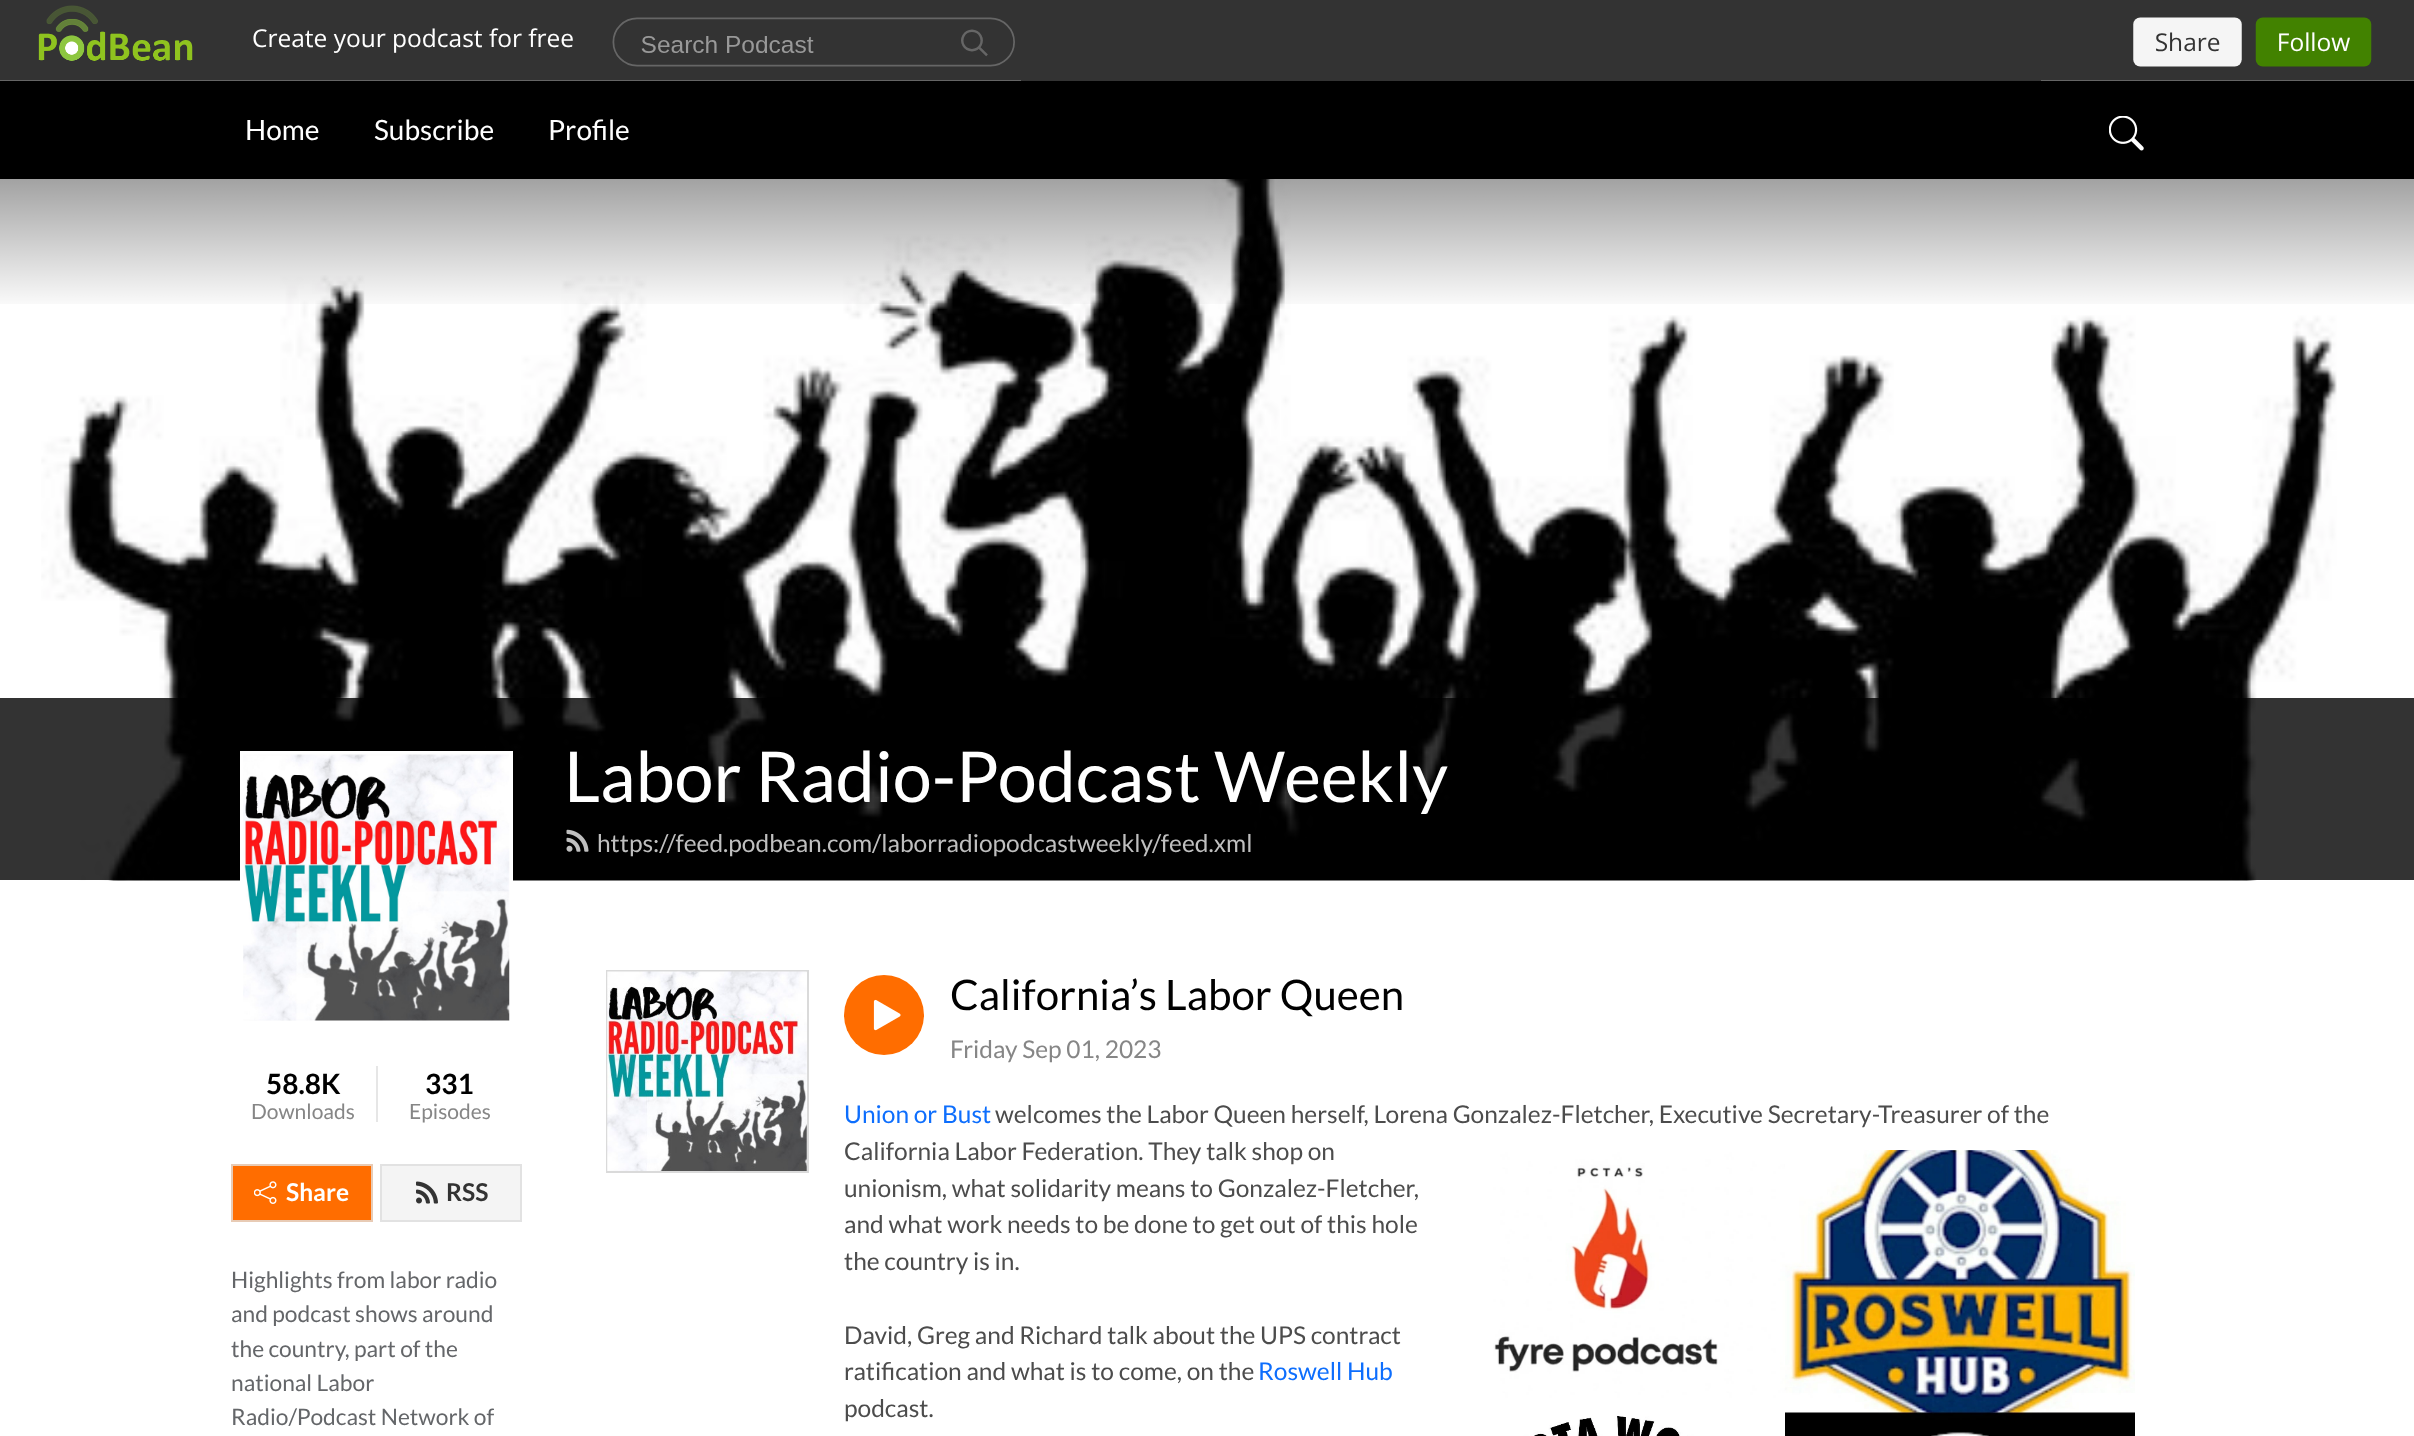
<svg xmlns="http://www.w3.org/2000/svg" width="2414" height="1436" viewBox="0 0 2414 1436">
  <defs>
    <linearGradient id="g1" gradientUnits="userSpaceOnUse" x1="1208" y1="312" x2="1208" y2="75"><stop offset="0" stop-color="#000000" stop-opacity="0"/><stop offset="1" stop-color="#000000" stop-opacity="0.65"/></linearGradient>
  </defs>
  <rect width="100%" height="100%" fill="#ffffff"/>
  <rect x="0" y="0" width="2414" height="5" fill="#333333"/>
  <image x="0" y="5" width="2414" height="76" href="img1.png"/>
  <rect x="0" y="81" width="2414" height="98" fill="#000000"/>
  <text x="245" y="140" font-family="Lato" font-size="28" fill="#ffffff">Home</text>
  <text x="374" y="140" font-family="Lato" font-size="28" fill="#ffffff">Subscribe</text>
  <text x="548" y="140" font-family="Lato" font-size="28" fill="#ffffff">Profile</text>
  <image x="2109" y="116" width="35" height="35" href="img2.png"/>
  <image x="41" y="179" width="2296" height="702" href="img3.png"/>
  <rect x="0" y="179" width="2414" height="125" fill="url(#g1)"/>
  <rect x="0" y="698" width="2414" height="182" fill="#000000" fill-opacity="0.8"/>
  <text x="564" y="802" font-family="Lato" font-size="70" fill="#ffffff">Labor Radio-Podcast Weekly</text>
  <image x="566" y="829" width="23" height="23" href="img4.png"/>
  <text x="597" y="852" font-family="Lato" font-size="24.5" fill="#bfbfbf">https://feed.podbean.com/laborradiopodcastweekly/feed.xml</text>
  <rect x="242" y="753" width="269" height="269" fill="none" stroke="#ffffff" stroke-width="4"/>
  <image x="243" y="754" width="267" height="267" href="img5.png"/>
  <text x="266" y="1094" font-family="Lato" font-size="28" font-weight="bold" fill="#000000">58.8K</text>
  <text x="251" y="1119" font-family="Lato" font-size="21" fill="#868686">Downloads</text>
  <rect x="376" y="1066" width="2" height="56" fill="#e6e6e6"/>
  <text x="425" y="1094" font-family="Lato" font-size="28" font-weight="bold" fill="#000000">331</text>
  <text x="409" y="1119" font-family="Lato" font-size="21" fill="#868686">Episodes</text>
  <rect x="232" y="1165" width="140" height="56" fill="#ff6d00" stroke="#e8cbb5" stroke-width="2"/>
  <image x="254" y="1181" width="23" height="23" href="img6.png"/>
  <text x="286" y="1201" font-family="Lato" font-size="24.5" font-weight="bold" fill="#ffffff">Share</text>
  <rect x="381" y="1165" width="140" height="56" fill="#f4f4f4" stroke="#e2e2e2" stroke-width="2"/>
  <image x="416" y="1181" width="22" height="23" href="img7.png"/>
  <text x="446" y="1201" font-family="Lato" font-size="24.5" font-weight="bold" fill="#333333">RSS</text>
  <text x="231" y="1288" font-family="Lato" font-size="22.75" fill="#646669">Highlights from labor radio</text>
  <text x="231" y="1322" font-family="Lato" font-size="22.75" fill="#646669">and podcast shows around</text>
  <text x="231" y="1357" font-family="Lato" font-size="22.75" fill="#646669">the country, part of the</text>
  <text x="231" y="1391" font-family="Lato" font-size="22.75" fill="#646669">national Labor</text>
  <text x="231" y="1425" font-family="Lato" font-size="22.75" fill="#646669">Radio/Podcast Network of</text>
  <rect x="607" y="971" width="201" height="201" fill="none" stroke="#dadada" stroke-width="2"/>
  <image x="607" y="971" width="200" height="200" href="img8.png"/>
  <circle cx="884" cy="1015" r="40" fill="#ff6d00"/>
  <image x="873" y="999" width="28" height="32" href="img9.png"/>
  <text x="950" y="1010" font-family="Lato" font-size="42" fill="#000000">California’s Labor Queen</text>
  <text x="950" y="1058" font-family="Lato" font-size="24.5" fill="#868686">Friday Sep 01, 2023</text>
  <text x="844" y="1123" font-family="Lato" font-size="24.5" fill="#0d6efd">Union or Bust</text>
  <text x="995" y="1123" font-family="Lato" font-size="24.5" fill="#4c4c4c">welcomes the Labor Queen herself, Lorena Gonzalez-Fletcher, Executive Secretary-Treasurer of the</text>
  <text x="844" y="1160" font-family="Lato" font-size="24.5" fill="#4c4c4c">California Labor Federation. They talk shop on</text>
  <image x="1493" y="1150" width="642" height="286" href="img10.png"/>
  <text x="844" y="1197" font-family="Lato" font-size="24.5" fill="#4c4c4c">unionism, what solidarity means to Gonzalez-Fletcher,</text>
  <text x="844" y="1233" font-family="Lato" font-size="24.5" fill="#4c4c4c">and what work needs to be done to get out of this hole</text>
  <text x="844" y="1270" font-family="Lato" font-size="24.5" fill="#4c4c4c">the country is in.</text>
  <text x="844" y="1344" font-family="Lato" font-size="24.5" fill="#4c4c4c">David, Greg and Richard talk about the UPS contract</text>
  <text x="844" y="1380" font-family="Lato" font-size="24.5" fill="#4c4c4c">ratification and what is to come, on the</text>
  <text x="1258" y="1380" font-family="Lato" font-size="24.5" fill="#0d6efd">Roswell Hub</text>
  <text x="844" y="1417" font-family="Lato" font-size="24.5" fill="#4c4c4c">podcast.</text>
</svg>
